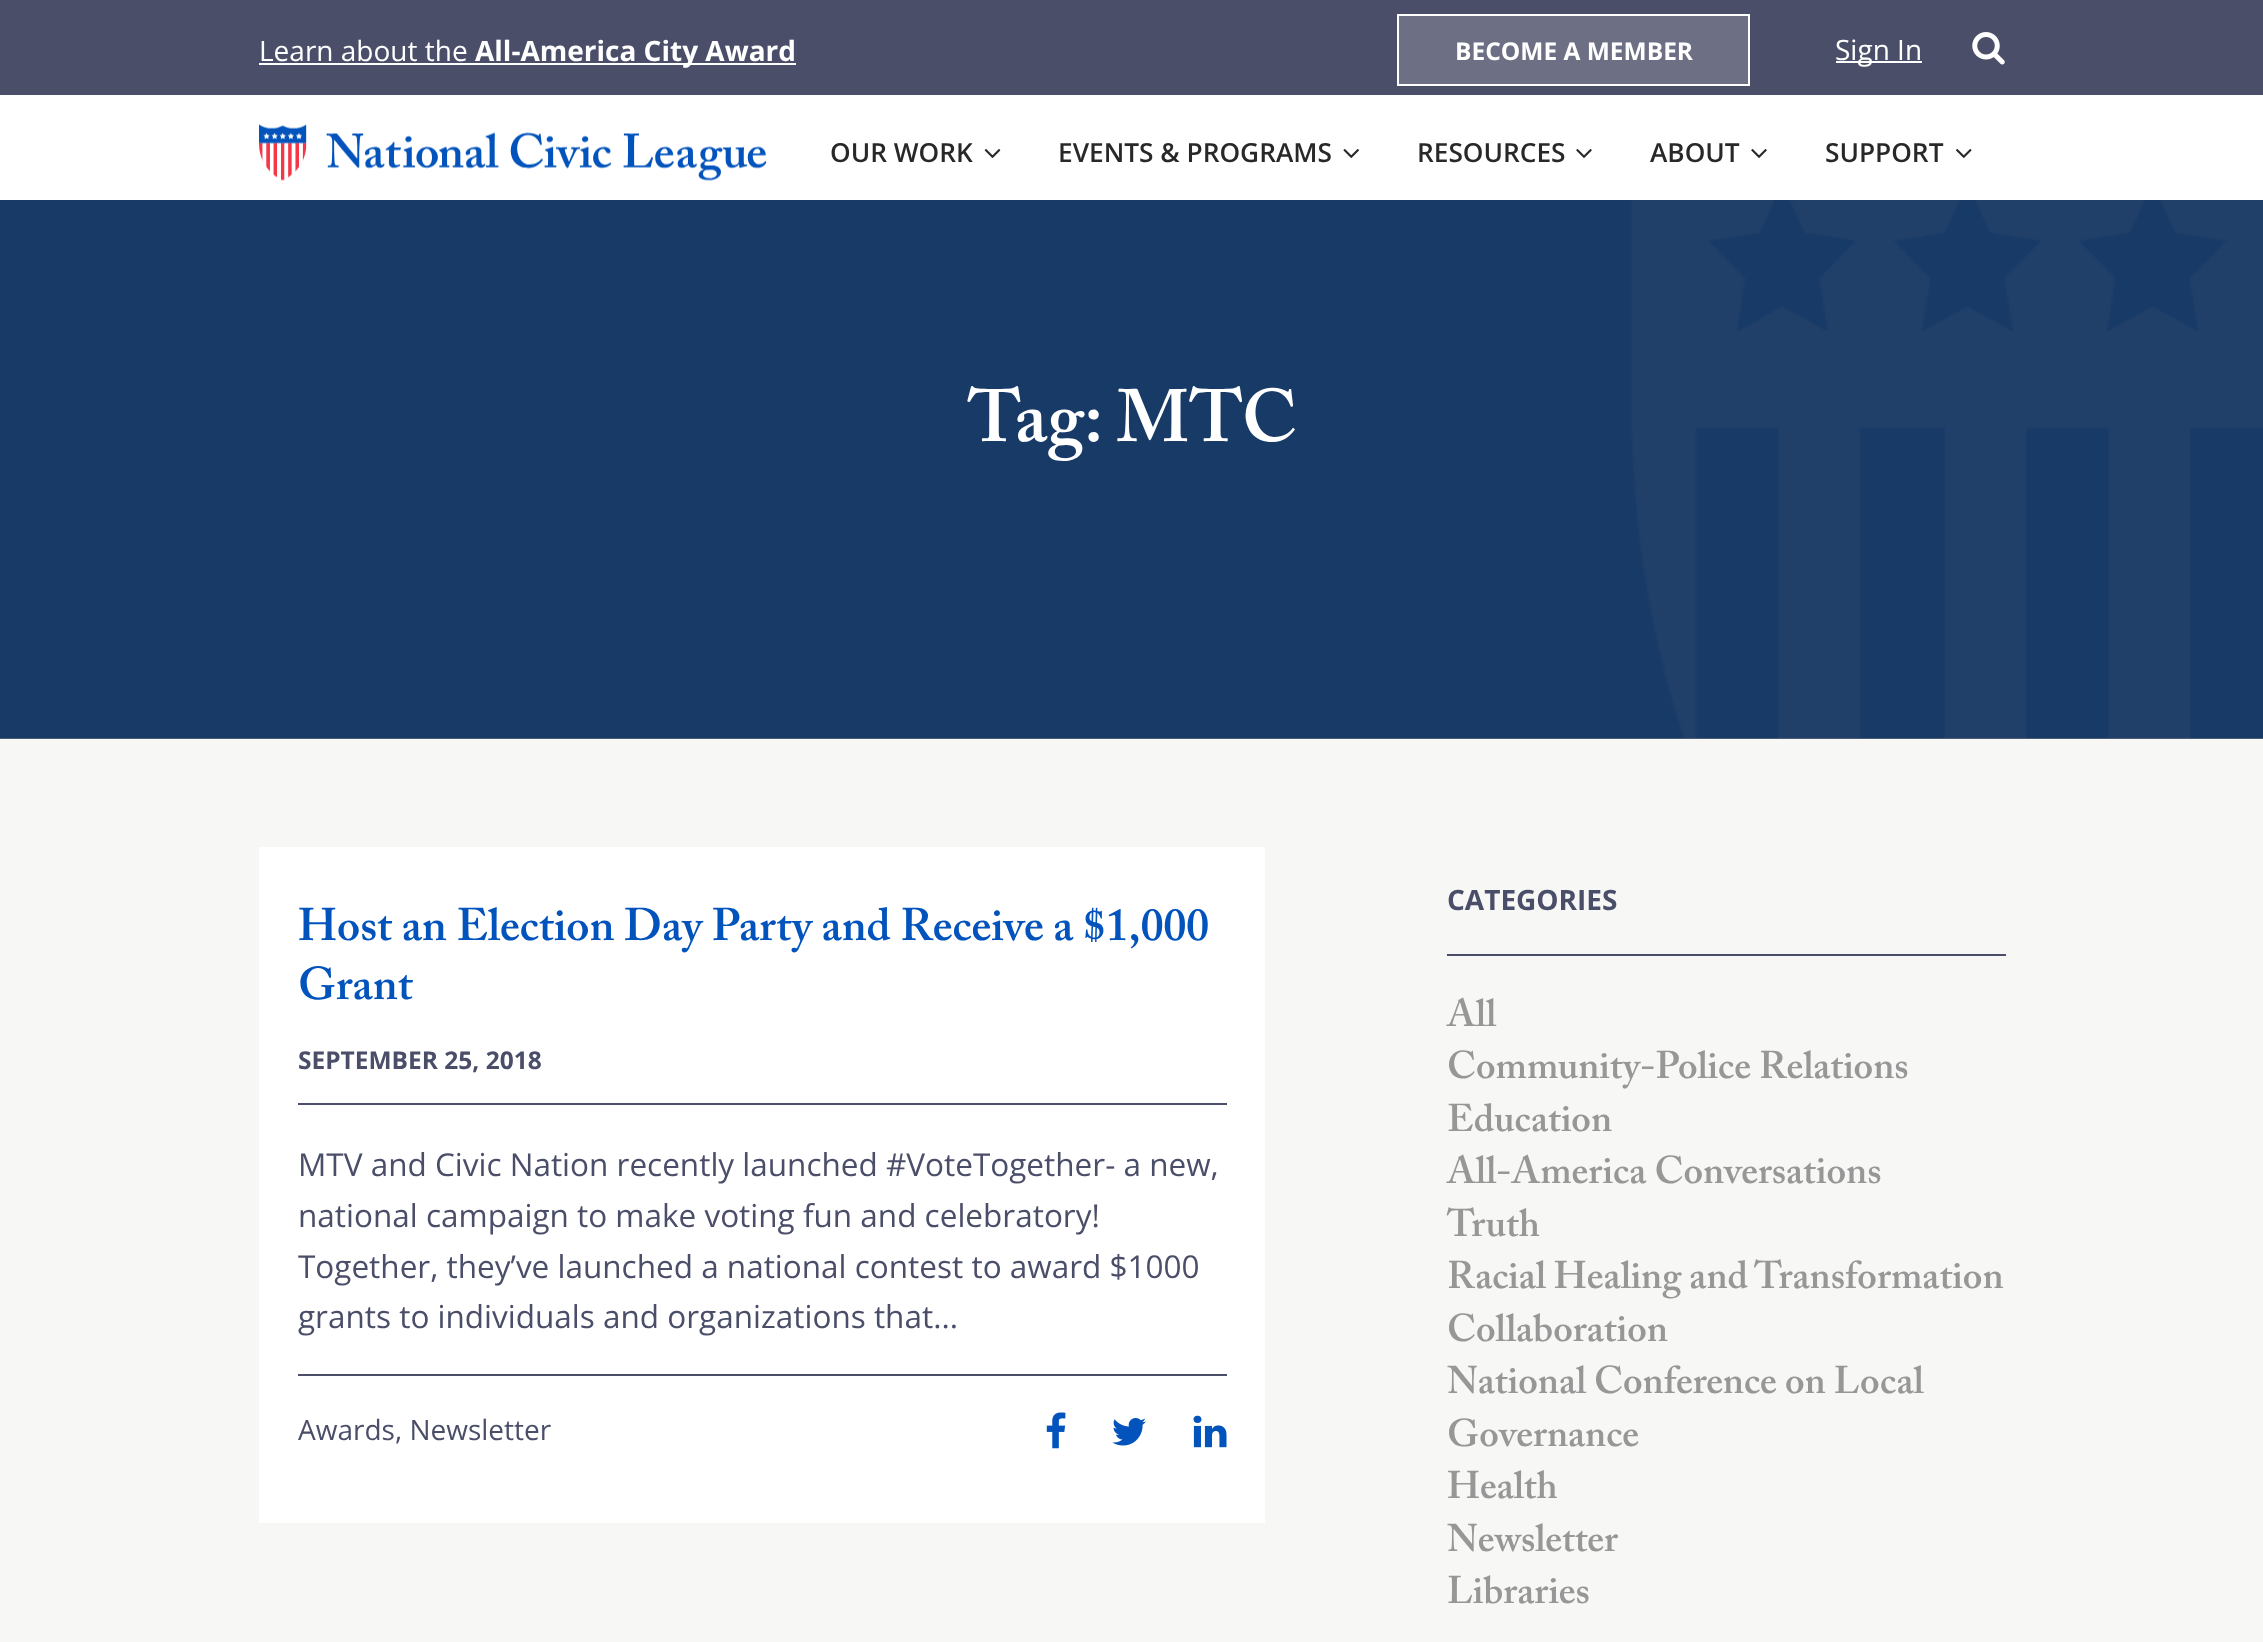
<svg xmlns="http://www.w3.org/2000/svg" width="2263" height="1642" viewBox="0 0 2263 1642">
  <rect width="100%" height="100%" fill="#f7f7f5"/>
  <rect x="0" y="738" width="2263" height="1" fill="#7f7f7f"/>
  <rect x="0" y="0" width="2263" height="95" fill="#4a4e69"/>
  <text x="259" y="61" font-family="Open Sans" font-size="28" fill="#ffffff">Learn about the</text>
  <rect x="259" y="63" width="537" height="2" fill="#ffffff"/>
  <text x="475" y="61" font-family="Open Sans" font-size="28" font-weight="bold" fill="#ffffff">All-America City Award</text>
  <rect x="1398" y="15" width="351" height="70" fill="#6d6f85" stroke="#ffffff" stroke-width="2"/>
  <text x="1455" y="60" font-family="Open Sans" font-size="24.5" font-weight="bold" fill="#ffffff">BECOME A MEMBER</text>
  <rect x="1836" y="61" width="86" height="2" fill="#ffffff"/>
  <text x="1835" y="60" font-family="Open Sans" font-size="28" fill="#ffffff">Sign In</text>
  <image x="1972" y="32" width="33" height="33" href="img1.png"/>
  <rect x="0" y="95" width="2263" height="105" fill="#ffffff"/>
  <image x="259" y="124" width="508" height="57" href="img2.png"/>
  <text x="830" y="162" font-family="Open Sans" font-size="26.25" font-weight="600" fill="#282829">OUR WORK</text>
  <image x="984" y="149" width="17" height="9" href="img3.png"/>
  <text x="1058" y="162" font-family="Open Sans" font-size="26.25" font-weight="600" fill="#282829">EVENTS &amp; PROGRAMS</text>
  <image x="1343" y="149" width="16" height="9" href="img4.png"/>
  <text x="1417" y="162" font-family="Open Sans" font-size="26.25" font-weight="600" fill="#282829">RESOURCES</text>
  <image x="1576" y="149" width="16" height="9" href="img5.png"/>
  <text x="1650" y="162" font-family="Open Sans" font-size="26.25" font-weight="600" fill="#282829">ABOUT</text>
  <image x="1751" y="149" width="16" height="9" href="img5.png"/>
  <text x="1825" y="162" font-family="Open Sans" font-size="26.25" font-weight="600" fill="#282829">SUPPORT</text>
  <image x="1956" y="149" width="16" height="9" href="img6.png"/>
  <image x="0" y="200" width="2263" height="539" href="img7.png"/>
  <text x="968" y="441" font-family="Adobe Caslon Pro" font-size="73.5" font-weight="600" fill="#ffffff">Tag: MTC</text>
  <rect x="259" y="847" width="1006" height="676" fill="#ffffff"/>
  <text x="298" y="940" font-family="Adobe Caslon Pro" font-size="45.5" font-weight="600" fill="#0253bc">Host an Election Day Party and Receive a $1,000</text>
  <text x="298" y="999" font-family="Adobe Caslon Pro" font-size="45.5" font-weight="600" fill="#0253bc">Grant</text>
  <rect x="298" y="1103" width="929" height="2" fill="#4a4e69"/>
  <text x="298" y="1069" font-family="Open Sans" font-size="24.5" font-weight="bold" fill="#4a4e69">SEPTEMBER 25, 2018</text>
  <text x="298" y="1176" font-family="Open Sans" font-size="31.5" fill="#4a4e69">MTV and Civic Nation recently launched #VoteTogether- a new,</text>
  <text x="298" y="1227" font-family="Open Sans" font-size="31.5" fill="#4a4e69">national campaign to make voting fun and celebratory!</text>
  <text x="298" y="1278" font-family="Open Sans" font-size="31.5" fill="#4a4e69">Together, they’ve launched a national contest to award $1000</text>
  <text x="298" y="1328" font-family="Open Sans" font-size="31.5" fill="#4a4e69">grants to individuals and organizations that...</text>
  <rect x="298" y="1374" width="929" height="2" fill="#4a4e69"/>
  <text x="298" y="1440" font-family="Open Sans" font-size="28" fill="#4a4e69">Awards, Newsletter</text>
  <image x="1046" y="1412" width="20" height="37" href="img8.png"/>
  <image x="1112" y="1418" width="34" height="28" href="img9.png"/>
  <image x="1193" y="1415" width="34" height="33" href="img10.png"/>
  <rect x="1447" y="954" width="559" height="2" fill="#4a4e69"/>
  <text x="1447" y="910" font-family="Open Sans" font-size="28" font-weight="bold" fill="#4a4e69">CATEGORIES</text>
  <text x="1447" y="1026" font-family="Adobe Caslon Pro" font-size="38.5" font-weight="600" fill="#979797">All</text>
  <text x="1447" y="1078" font-family="Adobe Caslon Pro" font-size="38.5" font-weight="600" fill="#979797">Community-Police Relations</text>
  <text x="1447" y="1131" font-family="Adobe Caslon Pro" font-size="38.5" font-weight="600" fill="#979797">Education</text>
  <text x="1447" y="1183" font-family="Adobe Caslon Pro" font-size="38.5" font-weight="600" fill="#979797">All-America Conversations</text>
  <text x="1447" y="1236" font-family="Adobe Caslon Pro" font-size="38.5" font-weight="600" fill="#979797">Truth</text>
  <text x="1447" y="1288" font-family="Adobe Caslon Pro" font-size="38.5" font-weight="600" fill="#979797">Racial Healing and Transformation</text>
  <text x="1447" y="1341" font-family="Adobe Caslon Pro" font-size="38.5" font-weight="600" fill="#979797">Collaboration</text>
  <text x="1447" y="1393" font-family="Adobe Caslon Pro" font-size="38.5" font-weight="600" fill="#979797">National Conference on Local</text>
  <text x="1447" y="1446" font-family="Adobe Caslon Pro" font-size="38.5" font-weight="600" fill="#979797">Governance</text>
  <text x="1447" y="1498" font-family="Adobe Caslon Pro" font-size="38.5" font-weight="600" fill="#979797">Health</text>
  <text x="1447" y="1551" font-family="Adobe Caslon Pro" font-size="38.5" font-weight="600" fill="#979797">Newsletter</text>
  <text x="1447" y="1603" font-family="Adobe Caslon Pro" font-size="38.5" font-weight="600" fill="#979797">Libraries</text>
</svg>
